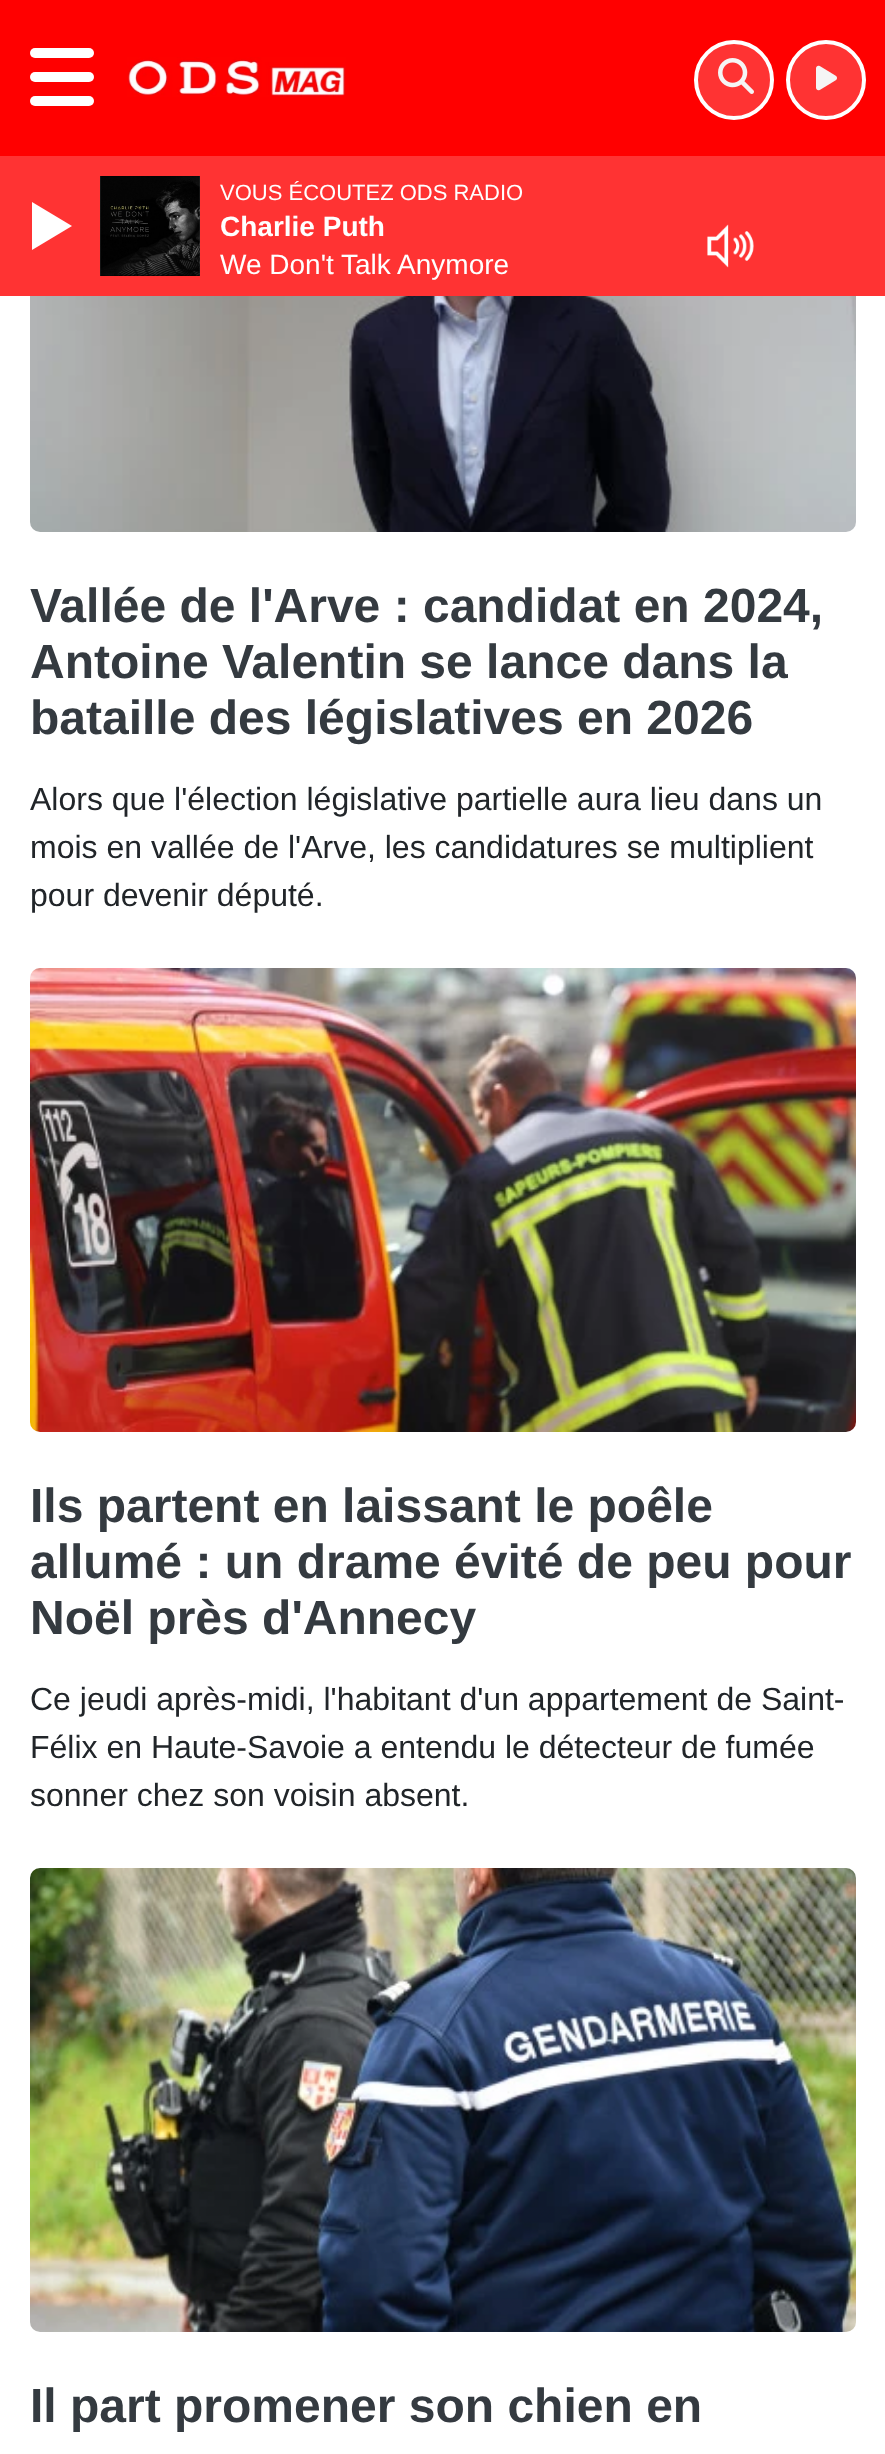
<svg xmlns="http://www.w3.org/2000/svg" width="885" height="2454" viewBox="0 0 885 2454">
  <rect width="100%" height="100%" fill="#ffffff"/>
  <rect x="0" y="156" width="885" height="140" fill="#ff3333"/>
  <image x="100" y="176" width="100" height="100" href="img1.png"/>
  <text x="220" y="200" font-family="Liberation Sans" font-size="22" fill="#ffffff">VOUS ÉCOUTEZ ODS RADIO</text>
  <text x="220" y="236" font-family="Liberation Sans" font-size="28" font-weight="bold" fill="#ffffff">Charlie Puth</text>
  <text x="220" y="274" font-family="Liberation Sans" font-size="28" fill="#ffffff">We Don't Talk Anymore</text>
  <path d="M32 250V202L72 226Z" fill="#ffffff"/>
  <image x="707" y="224" width="47" height="44" href="img2.png"/>
  <rect x="0" y="0" width="885" height="156" fill="#ff0000"/>
  <rect x="30" y="48" width="64" height="10" rx="5" fill="#ffffff"/>
  <rect x="30" y="72" width="64" height="10" rx="5" fill="#ffffff"/>
  <rect x="30" y="96" width="64" height="10" rx="5" fill="#ffffff"/>
  <image x="127" y="57" width="219" height="40" href="img3.png"/>
  <circle cx="734" cy="80" r="38" fill="#ff3333" stroke="#ffffff" stroke-width="4"/>
  <image x="718" y="58" width="36" height="36" href="img4.png"/>
  <circle cx="826" cy="80" r="38" fill="#ff3333" stroke="#ffffff" stroke-width="4"/>
  <image x="816" y="65" width="21" height="26" href="img5.png"/>
  <image x="30" y="296" width="826" height="236" href="img6.png"/>
  <text x="30" y="622" font-family="Liberation Sans" font-size="48" font-weight="bold" fill="#343a40">Vallée de l'Arve : candidat en 2024,</text>
  <text x="30" y="678" font-family="Liberation Sans" font-size="48" font-weight="bold" fill="#343a40">Antoine Valentin se lance dans la</text>
  <text x="30" y="734" font-family="Liberation Sans" font-size="48" font-weight="bold" fill="#343a40">bataille des législatives en 2026</text>
  <text x="30" y="810" font-family="Liberation Sans" font-size="32" fill="#212529">Alors que l'élection législative partielle aura lieu dans un</text>
  <text x="30" y="858" font-family="Liberation Sans" font-size="32" fill="#212529">mois en vallée de l'Arve, les candidatures se multiplient</text>
  <text x="30" y="906" font-family="Liberation Sans" font-size="32" fill="#212529">pour devenir député.</text>
  <image x="30" y="968" width="826" height="464" href="img7.png"/>
  <text x="30" y="1522" font-family="Liberation Sans" font-size="48" font-weight="bold" fill="#343a40">Ils partent en laissant le poêle</text>
  <text x="30" y="1578" font-family="Liberation Sans" font-size="48" font-weight="bold" fill="#343a40">allumé : un drame évité de peu pour</text>
  <text x="30" y="1634" font-family="Liberation Sans" font-size="48" font-weight="bold" fill="#343a40">Noël près d'Annecy</text>
  <text x="30" y="1710" font-family="Liberation Sans" font-size="32" fill="#212529">Ce jeudi après-midi, l'habitant d'un appartement de Saint-</text>
  <text x="30" y="1758" font-family="Liberation Sans" font-size="32" fill="#212529">Félix en Haute-Savoie a entendu le détecteur de fumée</text>
  <text x="30" y="1806" font-family="Liberation Sans" font-size="32" fill="#212529">sonner chez son voisin absent.</text>
  <image x="30" y="1868" width="826" height="464" href="img8.png"/>
  <text x="30" y="2422" font-family="Liberation Sans" font-size="48" font-weight="bold" fill="#343a40">Il part promener son chien en</text>
</svg>
